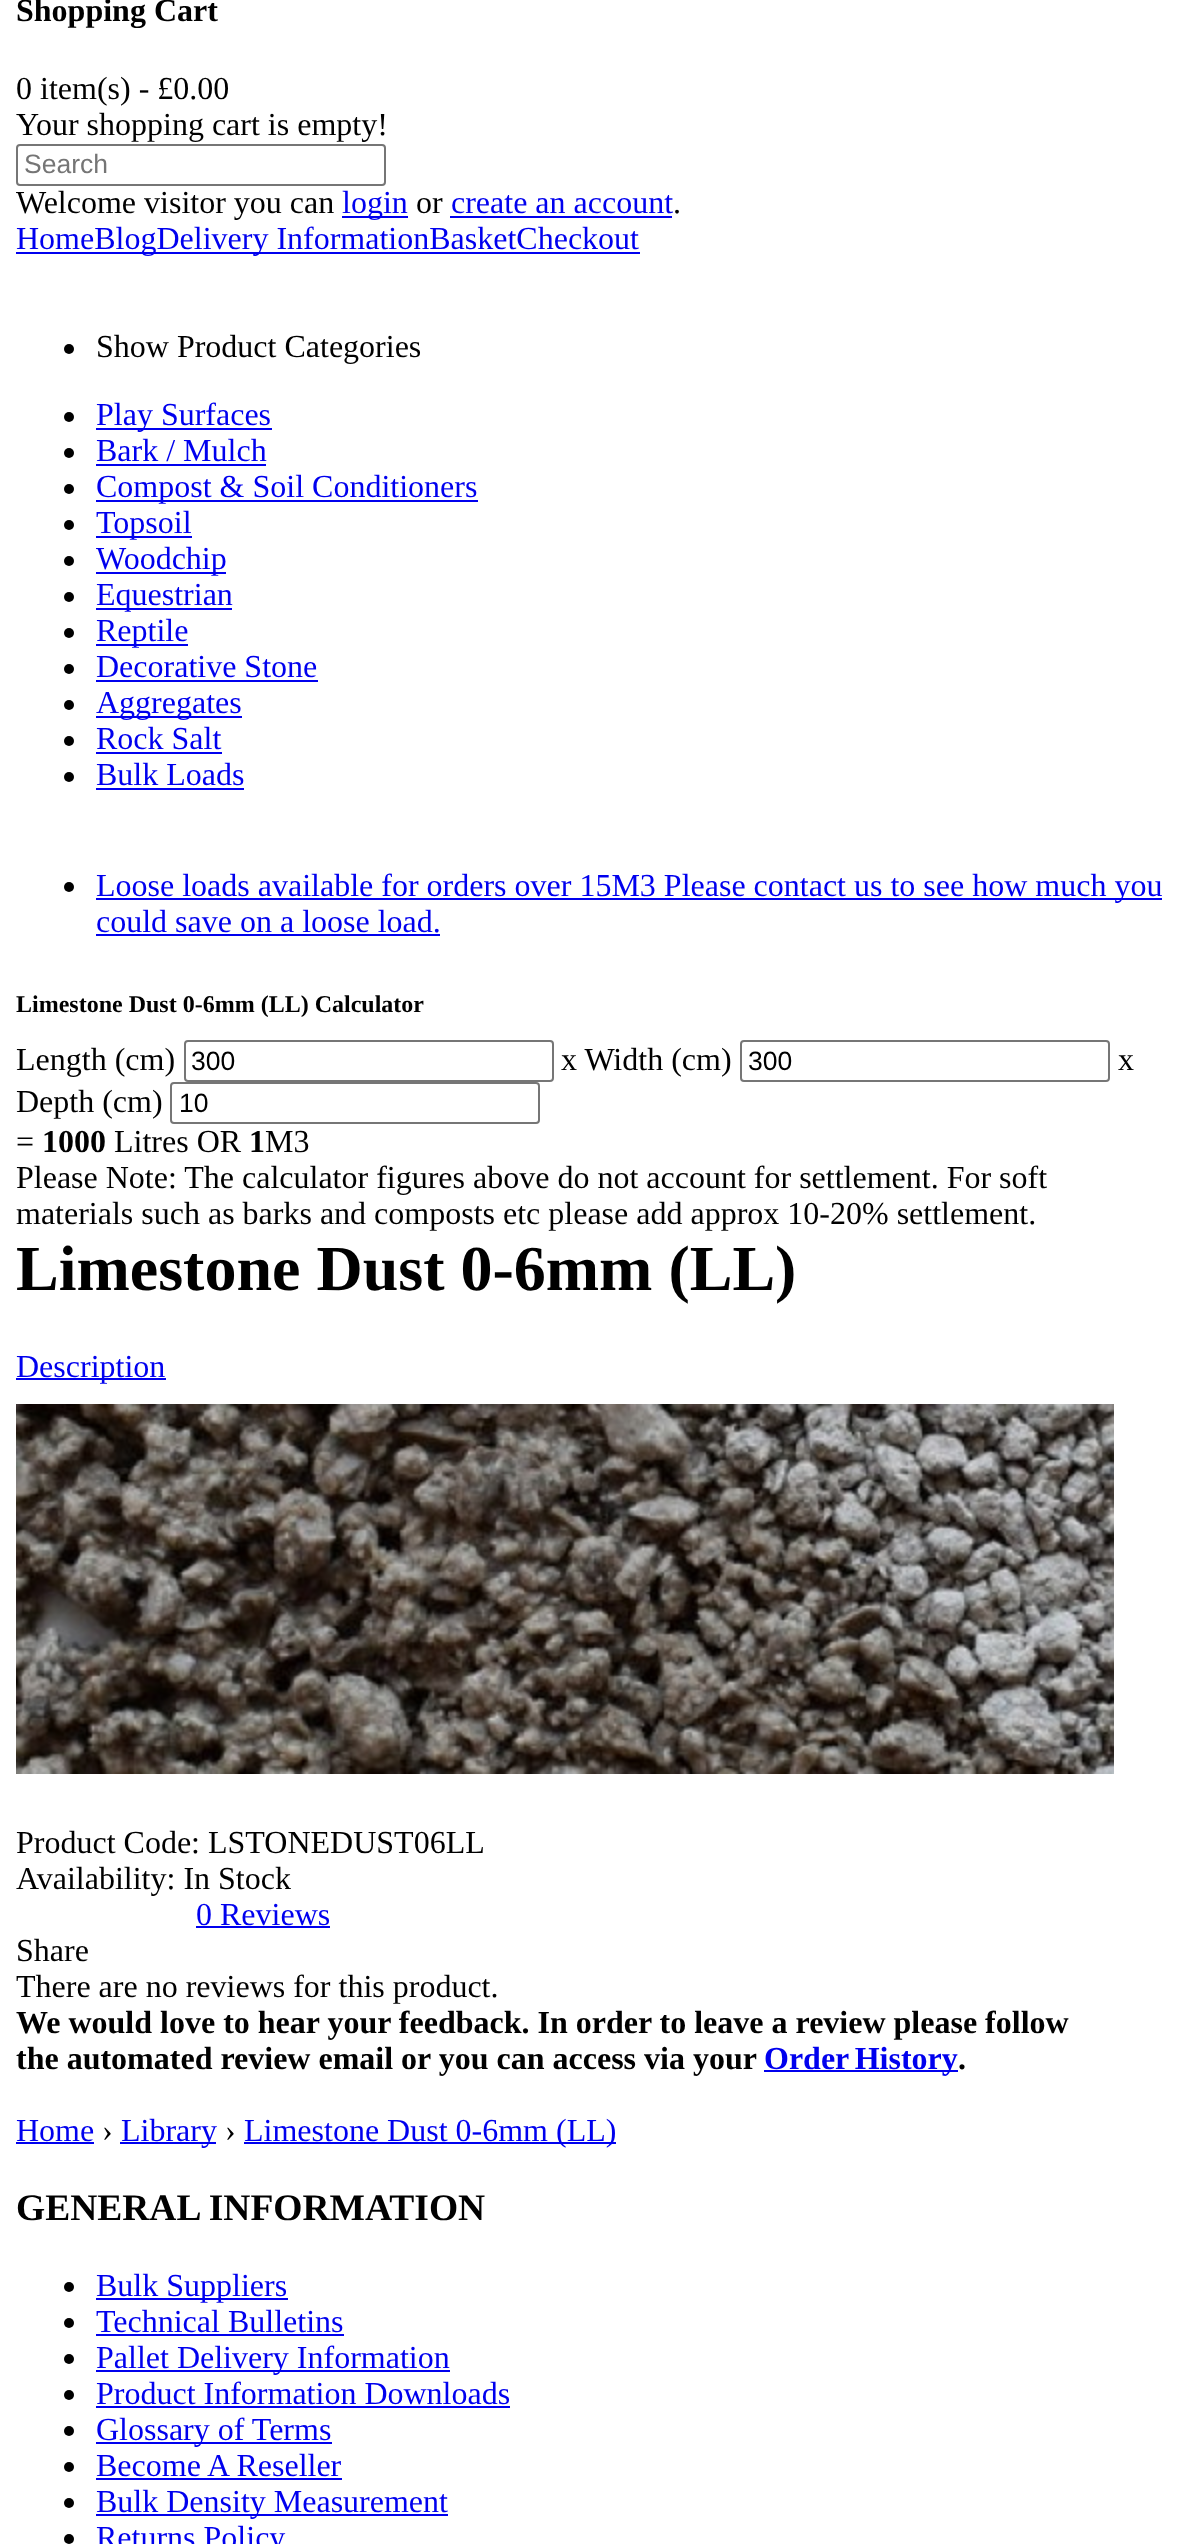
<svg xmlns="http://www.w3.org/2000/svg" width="1180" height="2544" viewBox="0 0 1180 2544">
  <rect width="100%" height="100%" fill="#ffffff"/>
  <text x="16" y="21" font-family="Liberation Serif" font-size="32" font-weight="bold" fill="#000000">Shopping Cart</text>
  <text x="16" y="99" font-family="Liberation Serif" font-size="32" fill="#000000">0 item(s) - £0.00</text>
  <text x="16" y="135" font-family="Liberation Serif" font-size="32" fill="#000000">Your shopping cart is empty!</text>
  <rect x="17" y="145" width="368" height="40" rx="3" fill="none" stroke="#767676" stroke-width="2"/>
  <text x="24" y="173" font-family="Liberation Sans" font-size="26.5" fill="#757575">Search</text>
  <text x="16" y="213" font-family="Liberation Serif" font-size="32" fill="#000000">Welcome visitor you can</text>
  <rect x="342" y="216" width="66" height="2" fill="#0000ee"/>
  <text x="342" y="213" font-family="Liberation Serif" font-size="32" fill="#0000ee">login</text>
  <text x="416" y="213" font-family="Liberation Serif" font-size="32" fill="#000000">or</text>
  <text x="451" y="213" font-family="Liberation Serif" font-size="32" fill="#0000ee">create an account</text>
  <rect x="450" y="216" width="222" height="2" fill="#0000ee"/>
  <text x="673" y="213" font-family="Liberation Serif" font-size="32" fill="#000000">.</text>
  <rect x="16" y="252" width="500" height="2" fill="#0000ee"/>
  <text x="16" y="249" font-family="Liberation Serif" font-size="32" fill="#0000ee">HomeBlogDelivery InformationBasketCheckout</text>
  <rect x="516" y="252" width="124" height="2" fill="#0000ee"/>
  <circle cx="69" cy="349" r="5" fill="#000000"/>
  <text x="96" y="357" font-family="Liberation Serif" font-size="32" fill="#000000">Show Product Categories</text>
  <circle cx="69" cy="417" r="5" fill="#000000"/>
  <rect x="96" y="428" width="176" height="2" fill="#0000ee"/>
  <text x="96" y="425" font-family="Liberation Serif" font-size="32" fill="#0000ee">Play Surfaces</text>
  <circle cx="69" cy="453" r="5" fill="#000000"/>
  <text x="96" y="461" font-family="Liberation Serif" font-size="32" fill="#0000ee">Bark / Mulch</text>
  <rect x="96" y="464" width="170" height="2" fill="#0000ee"/>
  <circle cx="69" cy="489" r="5" fill="#000000"/>
  <rect x="96" y="500" width="382" height="2" fill="#0000ee"/>
  <text x="96" y="497" font-family="Liberation Serif" font-size="32" fill="#0000ee">Compost &amp; Soil Conditioners</text>
  <circle cx="69" cy="525" r="5" fill="#000000"/>
  <rect x="96" y="536" width="96" height="2" fill="#0000ee"/>
  <text x="96" y="533" font-family="Liberation Serif" font-size="32" fill="#0000ee">Topsoil</text>
  <circle cx="69" cy="561" r="5" fill="#000000"/>
  <rect x="96" y="572" width="130" height="2" fill="#0000ee"/>
  <text x="96" y="569" font-family="Liberation Serif" font-size="32" fill="#0000ee">Woodchip</text>
  <circle cx="69" cy="597" r="5" fill="#000000"/>
  <rect x="96" y="608" width="136" height="2" fill="#0000ee"/>
  <text x="96" y="605" font-family="Liberation Serif" font-size="32" fill="#0000ee">Equestrian</text>
  <circle cx="69" cy="633" r="5" fill="#000000"/>
  <rect x="96" y="644" width="92" height="2" fill="#0000ee"/>
  <text x="96" y="641" font-family="Liberation Serif" font-size="32" fill="#0000ee">Reptile</text>
  <circle cx="69" cy="669" r="5" fill="#000000"/>
  <text x="96" y="677" font-family="Liberation Serif" font-size="32" fill="#0000ee">Decorative Stone</text>
  <rect x="96" y="680" width="222" height="2" fill="#0000ee"/>
  <circle cx="69" cy="705" r="5" fill="#000000"/>
  <rect x="96" y="716" width="146" height="2" fill="#0000ee"/>
  <text x="96" y="713" font-family="Liberation Serif" font-size="32" fill="#0000ee">Aggregates</text>
  <circle cx="69" cy="741" r="5" fill="#000000"/>
  <text x="96" y="749" font-family="Liberation Serif" font-size="32" fill="#0000ee">Rock Salt</text>
  <rect x="96" y="752" width="126" height="2" fill="#0000ee"/>
  <circle cx="69" cy="777" r="5" fill="#000000"/>
  <text x="96" y="785" font-family="Liberation Serif" font-size="32" fill="#0000ee">Bulk Loads</text>
  <rect x="96" y="788" width="148" height="2" fill="#0000ee"/>
  <circle cx="69" cy="887" r="5" fill="#000000"/>
  <rect x="96" y="898" width="1066" height="2" fill="#0000ee"/>
  <text x="96" y="896" font-family="Liberation Serif" font-size="32" fill="#0000ee">Loose loads available for orders over 15M3 Please contact us to see how much you</text>
  <text x="96" y="932" font-family="Liberation Serif" font-size="32" fill="#0000ee">could save on a loose load.</text>
  <rect x="96" y="934" width="344" height="2" fill="#0000ee"/>
  <text x="16" y="1012" font-family="Liberation Serif" font-size="24" font-weight="bold" fill="#000000">Limestone Dust 0-6mm (LL) Calculator</text>
  <text x="16" y="1070" font-family="Liberation Serif" font-size="32" fill="#000000">Length (cm)</text>
  <rect x="185" y="1041" width="368" height="40" rx="3" fill="none" stroke="#767676" stroke-width="2"/>
  <text x="191" y="1070" font-family="Liberation Sans" font-size="26.5" fill="#000000">300</text>
  <text x="561" y="1070" font-family="Liberation Serif" font-size="32" fill="#000000">x Width (cm)</text>
  <rect x="741" y="1041" width="368" height="40" rx="3" fill="none" stroke="#767676" stroke-width="2"/>
  <text x="748" y="1070" font-family="Liberation Sans" font-size="26.5" fill="#000000">300</text>
  <text x="1118" y="1070" font-family="Liberation Serif" font-size="32" fill="#000000">x</text>
  <text x="16" y="1112" font-family="Liberation Serif" font-size="32" fill="#000000">Depth (cm)</text>
  <rect x="171" y="1083" width="368" height="40" rx="3" fill="none" stroke="#767676" stroke-width="2"/>
  <text x="179" y="1112" font-family="Liberation Sans" font-size="26.5" fill="#000000">10</text>
  <text x="16" y="1152" font-family="Liberation Serif" font-size="32" fill="#000000">=</text>
  <text x="42" y="1152" font-family="Liberation Serif" font-size="32" font-weight="bold" fill="#000000">1000</text>
  <text x="114" y="1152" font-family="Liberation Serif" font-size="32" fill="#000000">Litres OR</text>
  <text x="249" y="1152" font-family="Liberation Serif" font-size="32" font-weight="bold" fill="#000000">1</text>
  <text x="265" y="1152" font-family="Liberation Serif" font-size="32" fill="#000000">M3</text>
  <text x="16" y="1188" font-family="Liberation Serif" font-size="32" fill="#000000">Please Note: The calculator figures above do not account for settlement. For soft</text>
  <text x="16" y="1224" font-family="Liberation Serif" font-size="32" fill="#000000">materials such as barks and composts etc please add approx 10-20% settlement.</text>
  <text x="16" y="1290" font-family="Liberation Serif" font-size="64" font-weight="bold" fill="#000000">Limestone Dust 0-6mm (LL)</text>
  <rect x="16" y="1378" width="150" height="2" fill="#0000ee"/>
  <text x="16" y="1377" font-family="Liberation Serif" font-size="32" fill="#0000ee">Description</text>
  <image x="16" y="1404" width="1098" height="370" href="img1.png"/>
  <text x="16" y="1853" font-family="Liberation Serif" font-size="32" fill="#000000">Product Code: LSTONEDUST06LL</text>
  <text x="16" y="1889" font-family="Liberation Serif" font-size="32" fill="#000000">Availability: In Stock</text>
  <text x="196" y="1925" font-family="Liberation Serif" font-size="32" fill="#0000ee">0 Reviews</text>
  <rect x="196" y="1926" width="134" height="2" fill="#0000ee"/>
  <text x="16" y="1961" font-family="Liberation Serif" font-size="32" fill="#000000">Share</text>
  <text x="16" y="1997" font-family="Liberation Serif" font-size="32" fill="#000000">There are no reviews for this product.</text>
  <text x="16" y="2033" font-family="Liberation Serif" font-size="32" font-weight="bold" fill="#000000">We would love to hear your feedback. In order to leave a review please follow</text>
  <text x="16" y="2069" font-family="Liberation Serif" font-size="32" font-weight="bold" fill="#000000">the automated review email or you can access via your</text>
  <rect x="764" y="2070" width="194" height="2" fill="#0000ee"/>
  <text x="764" y="2069" word-spacing="-2" font-family="Liberation Serif" font-size="32" font-weight="bold" fill="#0000ee">Order History</text>
  <text x="958" y="2069" font-family="Liberation Serif" font-size="32" font-weight="bold" fill="#000000">.</text>
  <text x="16" y="2141" font-family="Liberation Serif" font-size="32" fill="#0000ee">Home</text>
  <rect x="16" y="2142" width="78" height="2" fill="#0000ee"/>
  <text x="102" y="2141" font-family="Liberation Serif" font-size="32" fill="#000000">›</text>
  <rect x="120" y="2142" width="96" height="2" fill="#0000ee"/>
  <text x="121" y="2141" font-family="Liberation Serif" font-size="32" fill="#0000ee">Library</text>
  <text x="225" y="2141" font-family="Liberation Serif" font-size="32" fill="#000000">›</text>
  <rect x="244" y="2142" width="372" height="2" fill="#0000ee"/>
  <text x="244" y="2141" font-family="Liberation Serif" font-size="32" fill="#0000ee">Limestone Dust 0-6mm (LL)</text>
  <text x="16" y="2220" font-family="Liberation Serif" font-size="37.5" font-weight="bold" fill="#000000">GENERAL INFORMATION</text>
  <circle cx="69" cy="2287" r="5" fill="#000000"/>
  <rect x="96" y="2298" width="192" height="2" fill="#0000ee"/>
  <text x="96" y="2296" font-family="Liberation Serif" font-size="32" fill="#0000ee">Bulk Suppliers</text>
  <circle cx="69" cy="2323" r="5" fill="#000000"/>
  <text x="96" y="2332" font-family="Liberation Serif" font-size="32" fill="#0000ee">Technical Bulletins</text>
  <rect x="96" y="2334" width="248" height="2" fill="#0000ee"/>
  <circle cx="69" cy="2359" r="5" fill="#000000"/>
  <rect x="96" y="2370" width="354" height="2" fill="#0000ee"/>
  <text x="96" y="2368" font-family="Liberation Serif" font-size="32" fill="#0000ee">Pallet Delivery Information</text>
  <circle cx="69" cy="2395" r="5" fill="#000000"/>
  <text x="96" y="2404" font-family="Liberation Serif" font-size="32" fill="#0000ee">Product Information Downloads</text>
  <rect x="96" y="2406" width="414" height="2" fill="#0000ee"/>
  <circle cx="69" cy="2431" r="5" fill="#000000"/>
  <rect x="96" y="2442" width="236" height="2" fill="#0000ee"/>
  <text x="96" y="2440" font-family="Liberation Serif" font-size="32" fill="#0000ee">Glossary of Terms</text>
  <circle cx="69" cy="2467" r="5" fill="#000000"/>
  <text x="96" y="2476" font-family="Liberation Serif" font-size="32" fill="#0000ee">Become A Reseller</text>
  <rect x="96" y="2478" width="246" height="2" fill="#0000ee"/>
  <circle cx="69" cy="2503" r="5" fill="#000000"/>
  <rect x="96" y="2514" width="352" height="2" fill="#0000ee"/>
  <text x="96" y="2512" font-family="Liberation Serif" font-size="32" fill="#0000ee">Bulk Density Measurement</text>
  <circle cx="69" cy="2539" r="5" fill="#000000"/>
  <text x="96" y="2548" font-family="Liberation Serif" font-size="32" fill="#0000ee">Returns Policy</text>
</svg>
